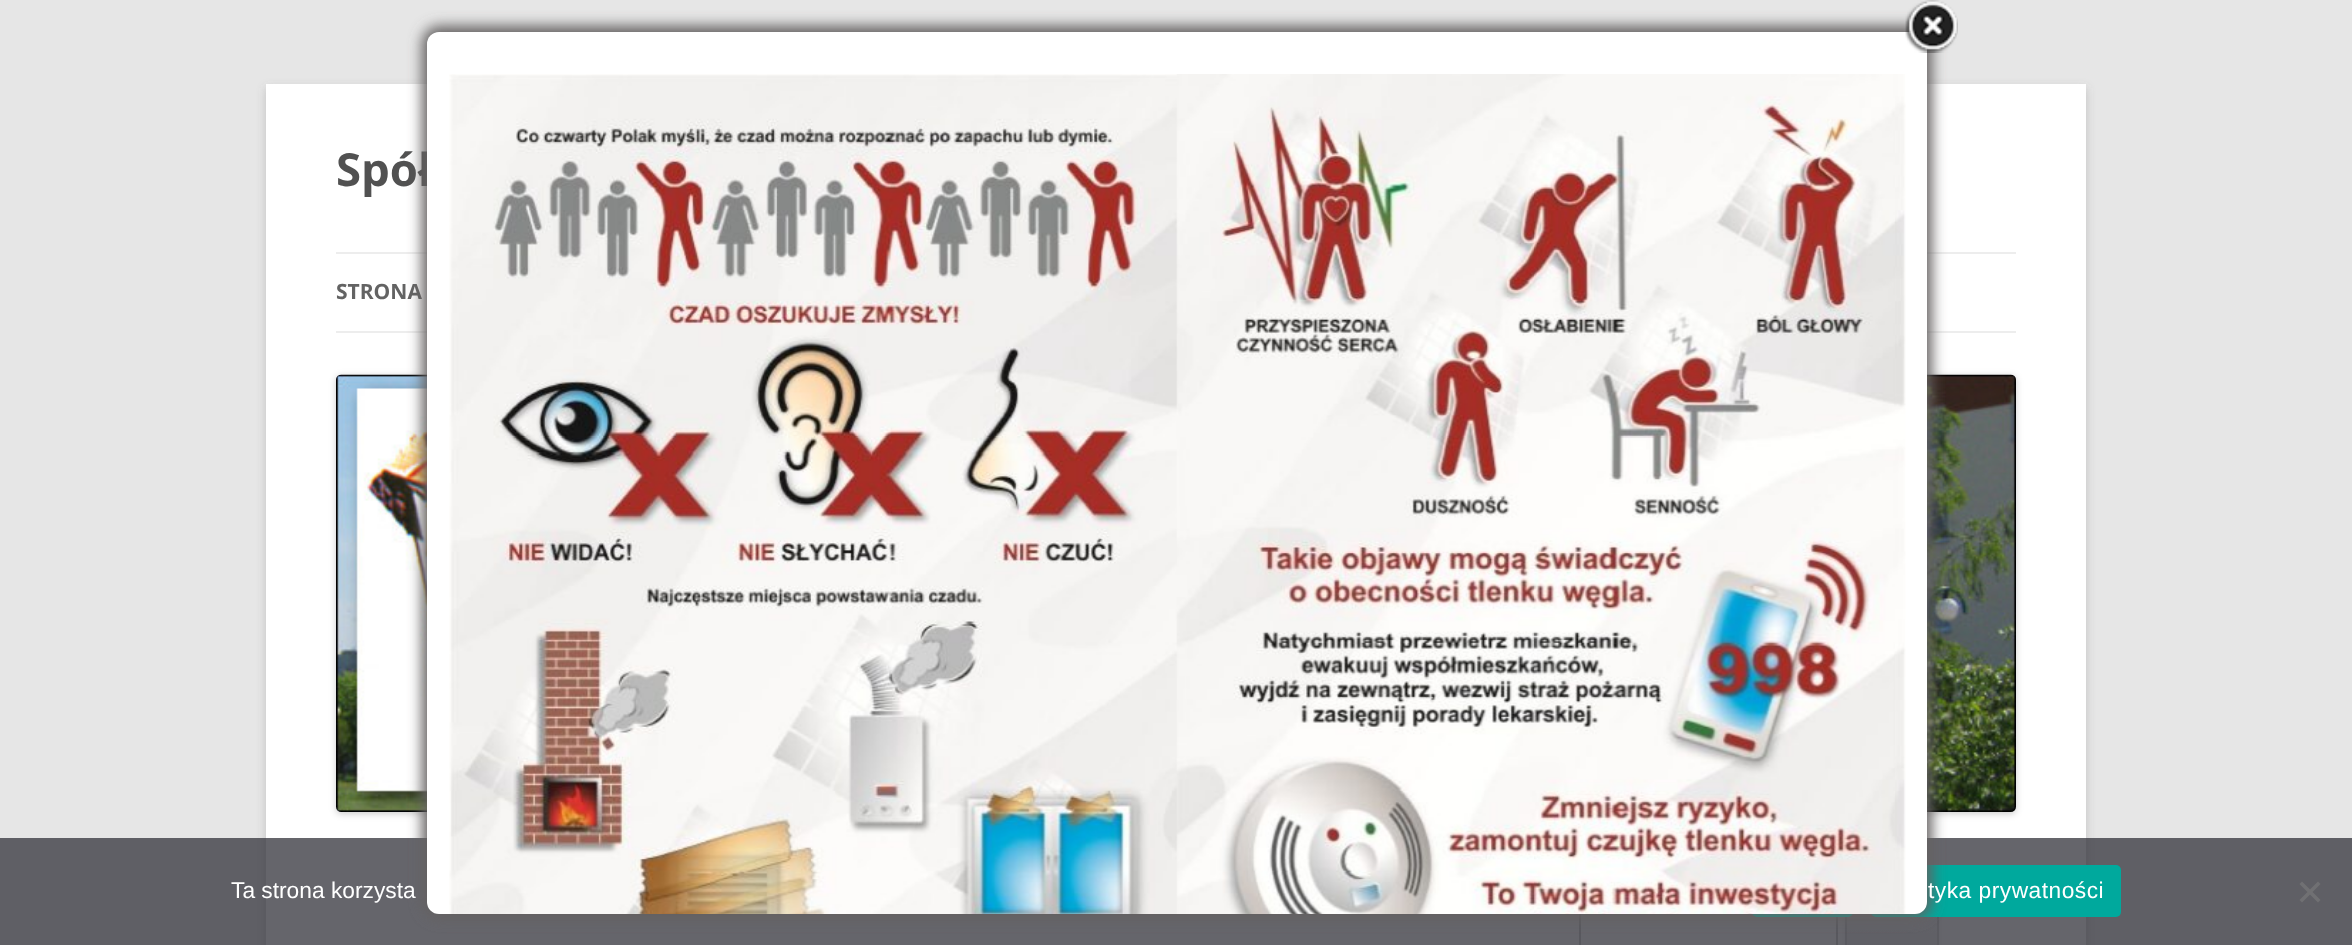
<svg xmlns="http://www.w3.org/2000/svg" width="2352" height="945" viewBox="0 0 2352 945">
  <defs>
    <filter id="blur1" x="-50%" y="-200%" width="200%" height="500%"><feGaussianBlur stdDeviation="5"/></filter>
    <filter id="blur2" x="-50%" y="-200%" width="200%" height="500%"><feGaussianBlur stdDeviation="3.5"/></filter>
    <filter id="blur3" x="-50%" y="-200%" width="200%" height="500%"><feGaussianBlur stdDeviation="2"/></filter>
    <linearGradient id="g1" gradientUnits="userSpaceOnUse" x1="1892" y1="905" x2="1892" y2="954"><stop offset="0" stop-color="#f4f4f4"/><stop offset="1" stop-color="#e6e6e6"/></linearGradient>
    <filter id="blur4" x="-50%" y="-200%" width="200%" height="500%"><feGaussianBlur stdDeviation="7"/></filter>
  </defs>
  <rect width="100%" height="100%" fill="#e6e6e6"/>
  <rect x="266" y="88" width="1820" height="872" fill="#646464" fill-opacity="0.3" filter="url(#blur1)"/>
  <rect x="266" y="84" width="1820" height="861" fill="#ffffff"/>
  <text x="336" y="186" font-family="Open Sans" font-size="45.5" font-weight="bold" fill="#515151">Spół</text>
  <rect x="336" y="252" width="1680" height="2" fill="#ededed"/>
  <rect x="336" y="331" width="1680" height="2" fill="#ededed"/>
  <text x="336" y="299" font-family="Open Sans" font-size="21" font-weight="bold" fill="#636363">STRONA</text>
  <rect x="336" y="376" width="1680" height="438" rx="5" fill="#000000" fill-opacity="0.2" filter="url(#blur2)"/>
  <image x="336" y="374" width="1680" height="438" href="img1.png"/>
  <rect x="1580" y="901" width="257" height="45" fill="none" stroke="#cccccc" stroke-width="2"/>
  <rect x="1845" y="905" width="94" height="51" rx="5" fill="#404040" fill-opacity="0.1" filter="url(#blur3)"/>
  <rect x="1847" y="914" width="90" height="31" fill="url(#g1)"/>
  <rect x="1846" y="904" width="92" height="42" fill="none" stroke="#d2d2d2" stroke-width="2"/>
  <rect x="0" y="838" width="2352" height="107" fill="#32323a" fill-opacity="0.75"/>
  <rect x="1752" y="865" width="101" height="52" rx="5" fill="#00a99d"/>
  <rect x="1871" y="865" width="250" height="52" rx="5" fill="#00a99d"/>
  <rect x="422" y="26" width="1510" height="893" rx="18" fill="#646161" filter="url(#blur4)"/>
  <rect x="427" y="32" width="1500" height="882" rx="12" fill="#ffffff"/>
  <image x="1905" y="0" width="53" height="53" href="img2.png"/>
  <image x="449" y="74" width="1457" height="840" href="img3.png"/>
  <text x="231" y="898" font-family="Liberation Sans" font-size="22.75" fill="#ffffff">Ta strona korzysta</text>
  <text x="1928" y="898" font-family="Liberation Sans" font-size="22.75" letter-spacing="0.5" fill="#ffffff">tyka prywatności</text>
  <path d="M2318 881.5L2320.5 884L2302 902.5L2299.5 900Z" fill="#707073"/>
  <path d="M2299.5 884L2302 881.5L2320.5 900L2318 902.5Z" fill="#707073"/>
</svg>
